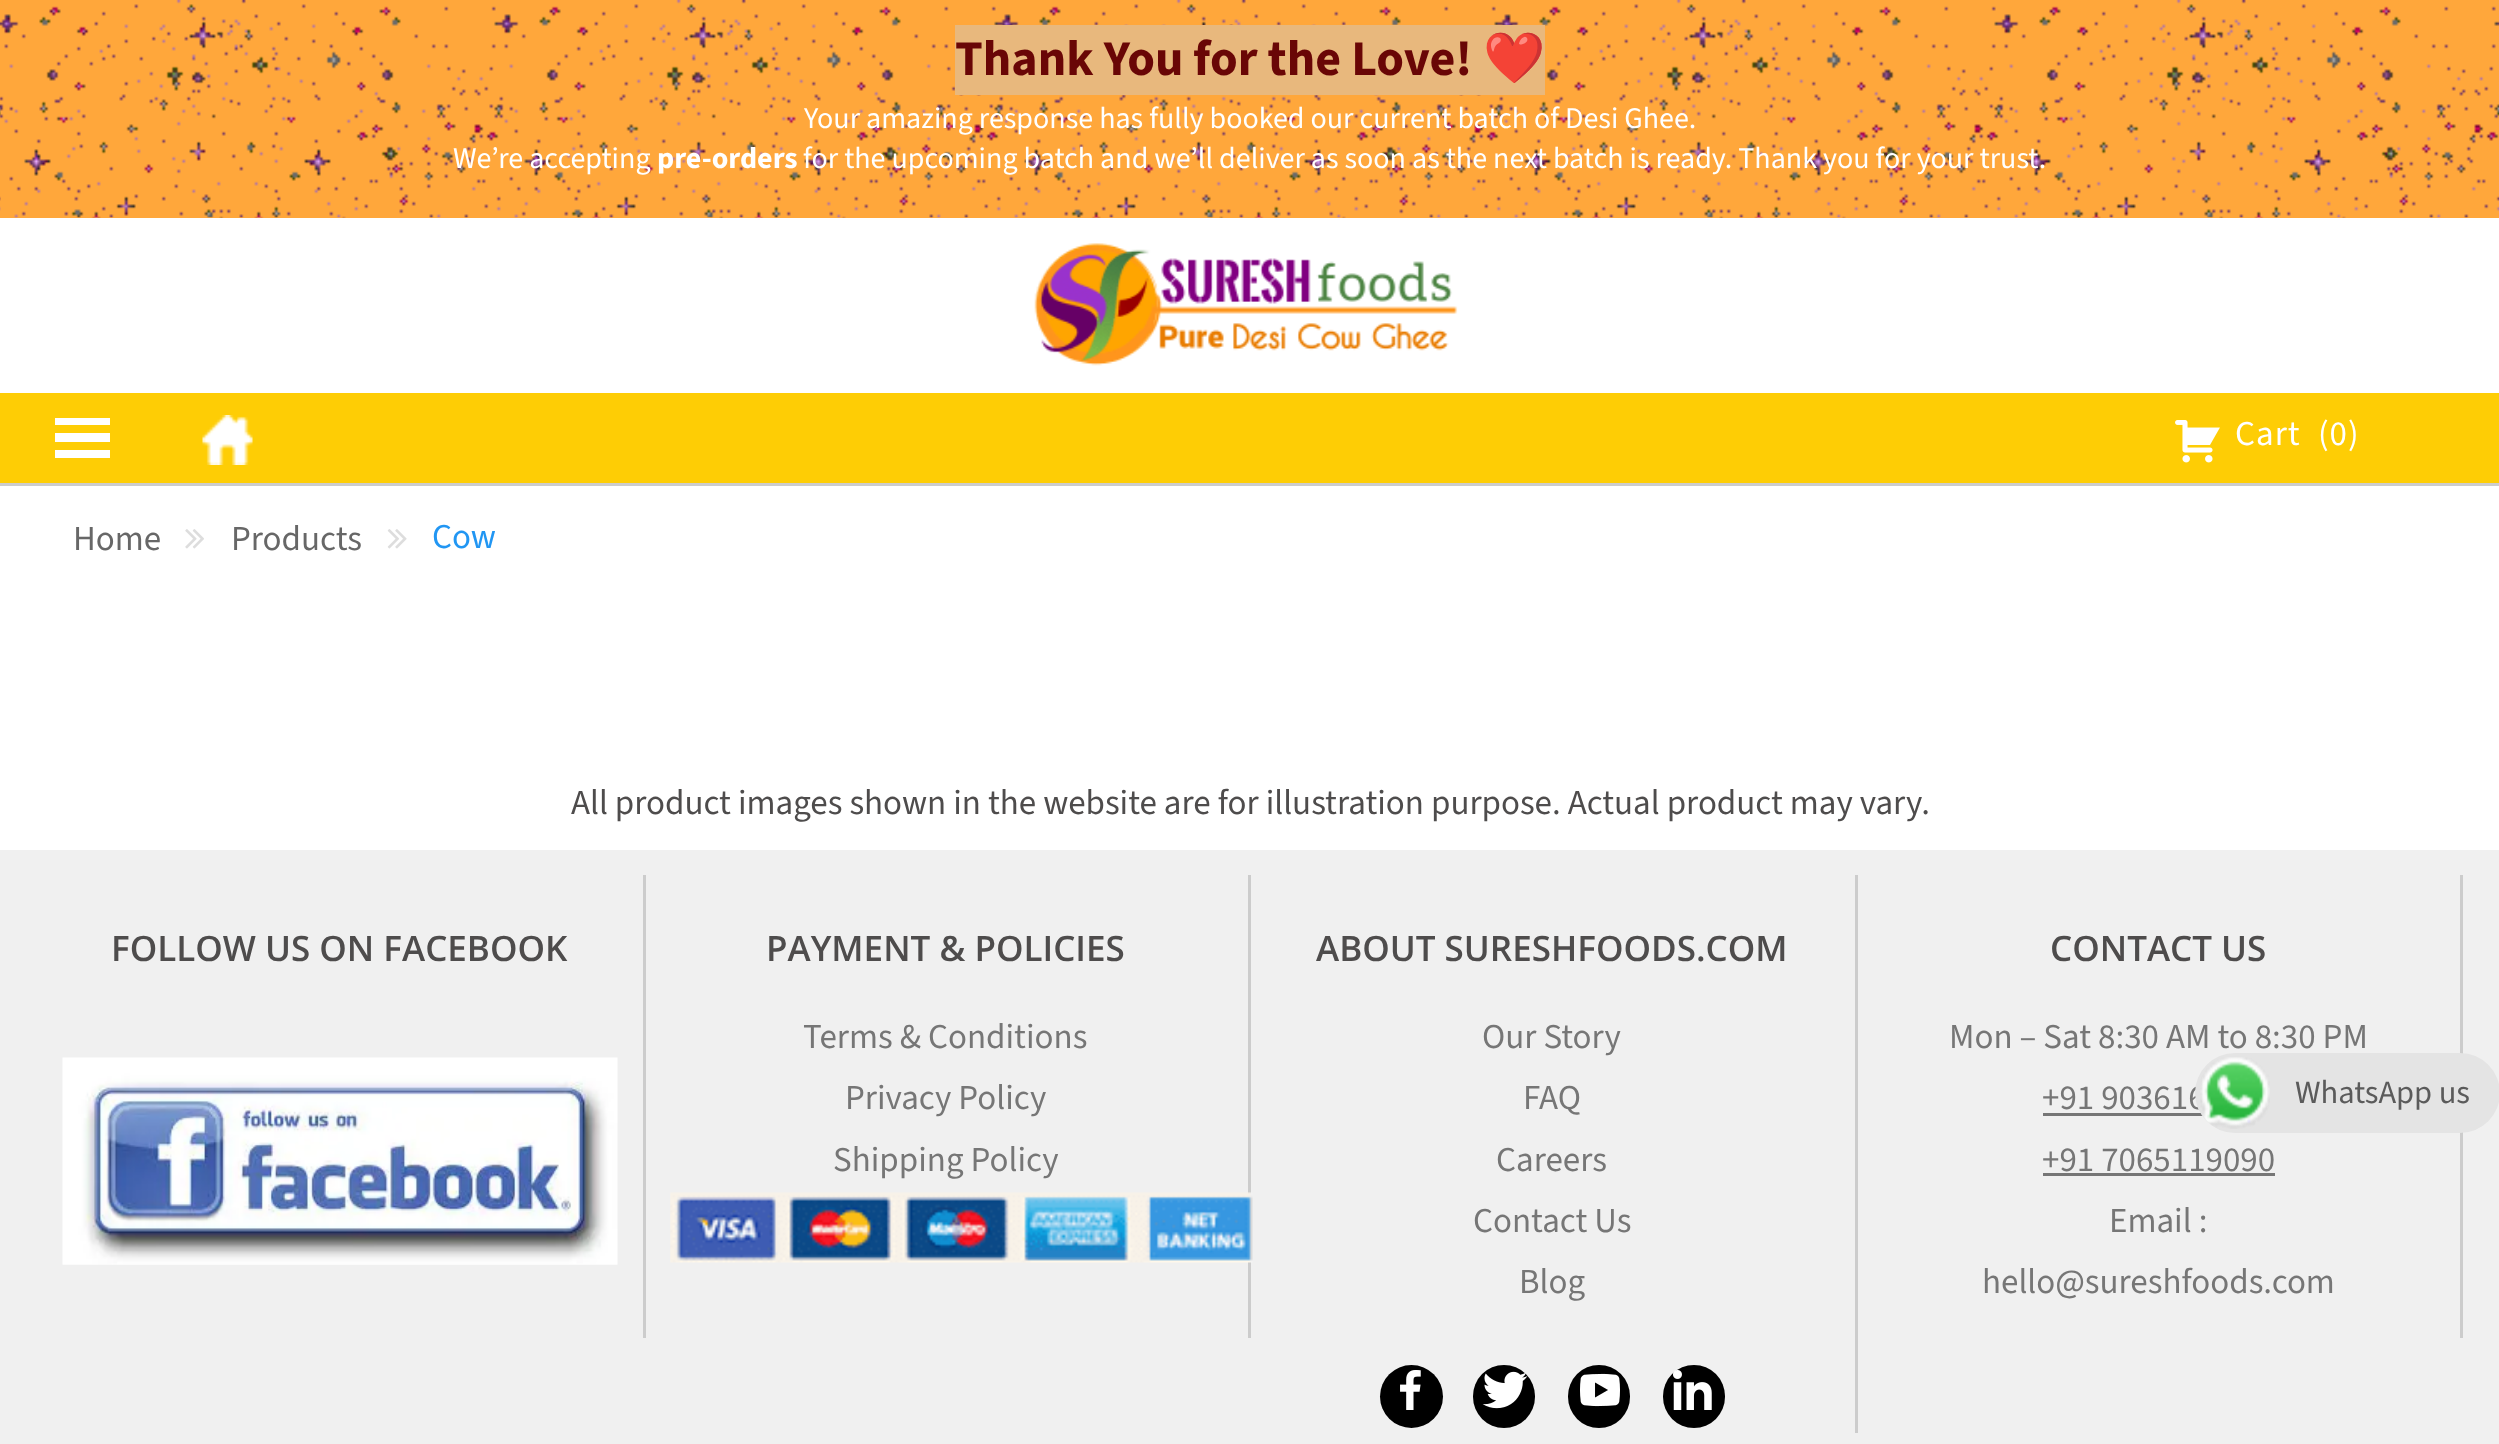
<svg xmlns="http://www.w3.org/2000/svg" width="2499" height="1444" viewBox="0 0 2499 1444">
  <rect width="100%" height="100%" fill="#ffffff"/>
  <rect x="0" y="0" width="2499" height="218" fill="#ffa73b"/>
  <image x="0" y="0" width="2499" height="218" href="img1.png"/>
  <rect x="955" y="25" width="590" height="70" fill="#e8b87d"/>
  <text x="955" y="75" font-family="'Source Sans 3'" font-size="50" font-weight="bold" fill="#690606">Thank You for the Love!</text>
  <text x="1483" y="75" font-family="Noto Color Emoji" font-size="50" font-weight="bold" fill="#ff0000">❤️</text>
  <text x="804" y="128" font-family="'Source Sans 3'" font-size="30" fill="#ffffff">Your amazing response has fully booked our current batch of Desi Ghee.</text>
  <text x="453" y="168" font-family="'Source Sans 3'" font-size="30" fill="#ffffff">We’re accepting</text>
  <text x="657" y="168" font-family="'Source Sans 3'" font-size="30" font-weight="bold" fill="#ffffff">pre-orders</text>
  <text x="803" y="168" font-family="'Source Sans 3'" font-size="30" fill="#ffffff">for the upcoming batch and we’ll deliver as soon as the next batch is ready. Thank you for your trust.</text>
  <image x="1034" y="243" width="424" height="123" href="img2.png"/>
  <rect x="0" y="393" width="2499" height="90" fill="#fecd05"/>
  <path d="M55 458H110V450H55ZM55 418V425H110V418ZM55 442H110V433H55Z" fill="#ffffff"/>
  <image x="202" y="415" width="51" height="50" href="img3.png"/>
  <image x="2175" y="420" width="45" height="43" href="img4.png"/>
  <text x="2235" y="445" font-family="'Source Sans 3'" font-size="35" letter-spacing="1" fill="#ffffff">Cart</text>
  <text x="2318" y="445" font-family="'Source Sans 3'" font-size="35" letter-spacing="1" fill="#ffffff">(0)</text>
  <rect x="0" y="483" width="2499" height="3" fill="#cccccc"/>
  <text x="73" y="550" font-family="'Source Sans 3'" font-size="35" fill="#676767">Home</text>
  <image x="185" y="529" width="19" height="20" href="img5.png"/>
  <text x="231" y="550" font-family="'Source Sans 3'" font-size="35" fill="#676767">Products</text>
  <image x="387" y="529" width="20" height="20" href="img6.png"/>
  <text x="432" y="548" font-family="'Source Sans 3'" font-size="35" fill="#2196f3">Cow</text>
  <text x="571" y="814" font-family="'Source Sans 3'" font-size="35" fill="#4e4c4c">All product images shown in the website are for illustration purpose. Actual product may vary.</text>
  <rect x="0" y="850" width="2499" height="594" fill="#f0f0f0"/>
  <rect x="643" y="875" width="3" height="463" fill="#cccccc"/>
  <text x="111" y="961" font-family="Open Sans" font-size="35" font-weight="600" fill="#4e4c4c">FOLLOW US ON FACEBOOK</text>
  <image x="62" y="1057" width="556" height="208" href="img7.png"/>
  <rect x="1248" y="875" width="3" height="463" fill="#cccccc"/>
  <text x="766" y="961" font-family="Open Sans" font-size="35" font-weight="600" fill="#4e4c4c">PAYMENT &amp; POLICIES</text>
  <text x="803" y="1048" font-family="'Source Sans 3'" font-size="35" fill="#767676">Terms &amp; Conditions</text>
  <text x="845" y="1109" font-family="'Source Sans 3'" font-size="35" fill="#767676">Privacy Policy</text>
  <text x="833" y="1171" font-family="'Source Sans 3'" font-size="35" fill="#767676">Shipping Policy</text>
  <image x="670" y="1192" width="583" height="71" href="img8.png"/>
  <rect x="1855" y="875" width="3" height="558" fill="#cccccc"/>
  <text x="1316" y="961" font-family="Open Sans" font-size="35" font-weight="600" fill="#4e4c4c">ABOUT SURESHFOODS.COM</text>
  <text x="1482" y="1048" font-family="'Source Sans 3'" font-size="35" fill="#767676">Our Story</text>
  <text x="1523" y="1109" font-family="'Source Sans 3'" font-size="35" fill="#767676">FAQ</text>
  <text x="1496" y="1171" font-family="'Source Sans 3'" font-size="35" fill="#767676">Careers</text>
  <text x="1473" y="1232" font-family="'Source Sans 3'" font-size="35" fill="#767676">Contact Us</text>
  <text x="1519" y="1293" font-family="'Source Sans 3'" font-size="35" fill="#767676">Blog</text>
  <circle cx="1411.5" cy="1396.5" r="31.5" fill="#000000"/>
  <image x="1400" y="1370" width="21" height="40" href="img9.png"/>
  <rect x="1473" y="1365" width="62" height="63" rx="31" fill="#000000"/>
  <image x="1482" y="1371" width="46" height="38" href="img10.png"/>
  <rect x="1568" y="1365" width="62" height="63" rx="31" fill="#000000"/>
  <image x="1580" y="1373" width="40" height="34" href="img11.png"/>
  <rect x="1663" y="1365" width="62" height="63" rx="31" fill="#000000"/>
  <image x="1673" y="1370" width="39" height="40" href="img12.png"/>
  <rect x="2460" y="875" width="3" height="463" fill="#cccccc"/>
  <text x="2050" y="961" font-family="Open Sans" font-size="35" font-weight="600" fill="#4e4c4c">CONTACT US</text>
  <text x="1949" y="1048" font-family="'Source Sans 3'" font-size="35" fill="#767676">Mon – Sat 8:30 AM to 8:30 PM</text>
  <text x="2042" y="1109" font-family="'Source Sans 3'" font-size="35" fill="#767676">+91 903616</text>
  <rect x="2043" y="1113" width="160" height="3" fill="#767676"/>
  <text x="2042" y="1171" font-family="'Source Sans 3'" font-size="35" fill="#767676">+91 7065119090</text>
  <rect x="2043" y="1173" width="232" height="3" fill="#767676"/>
  <text x="2109" y="1232" font-family="'Source Sans 3'" font-size="35" fill="#767676">Email :</text>
  <text x="1982" y="1293" font-family="'Source Sans 3'" font-size="35" fill="#767676">hello@sureshfoods.com</text>
  <rect x="2195" y="1053" width="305" height="80" rx="40" fill="#e4e4e4"/>
  <image x="2200" y="1057" width="70" height="72" href="img13.png"/>
  <text x="2295" y="1103" font-family="'Source Sans 3'" font-size="32.5" fill="#5b5b5b">WhatsApp us</text>
</svg>
